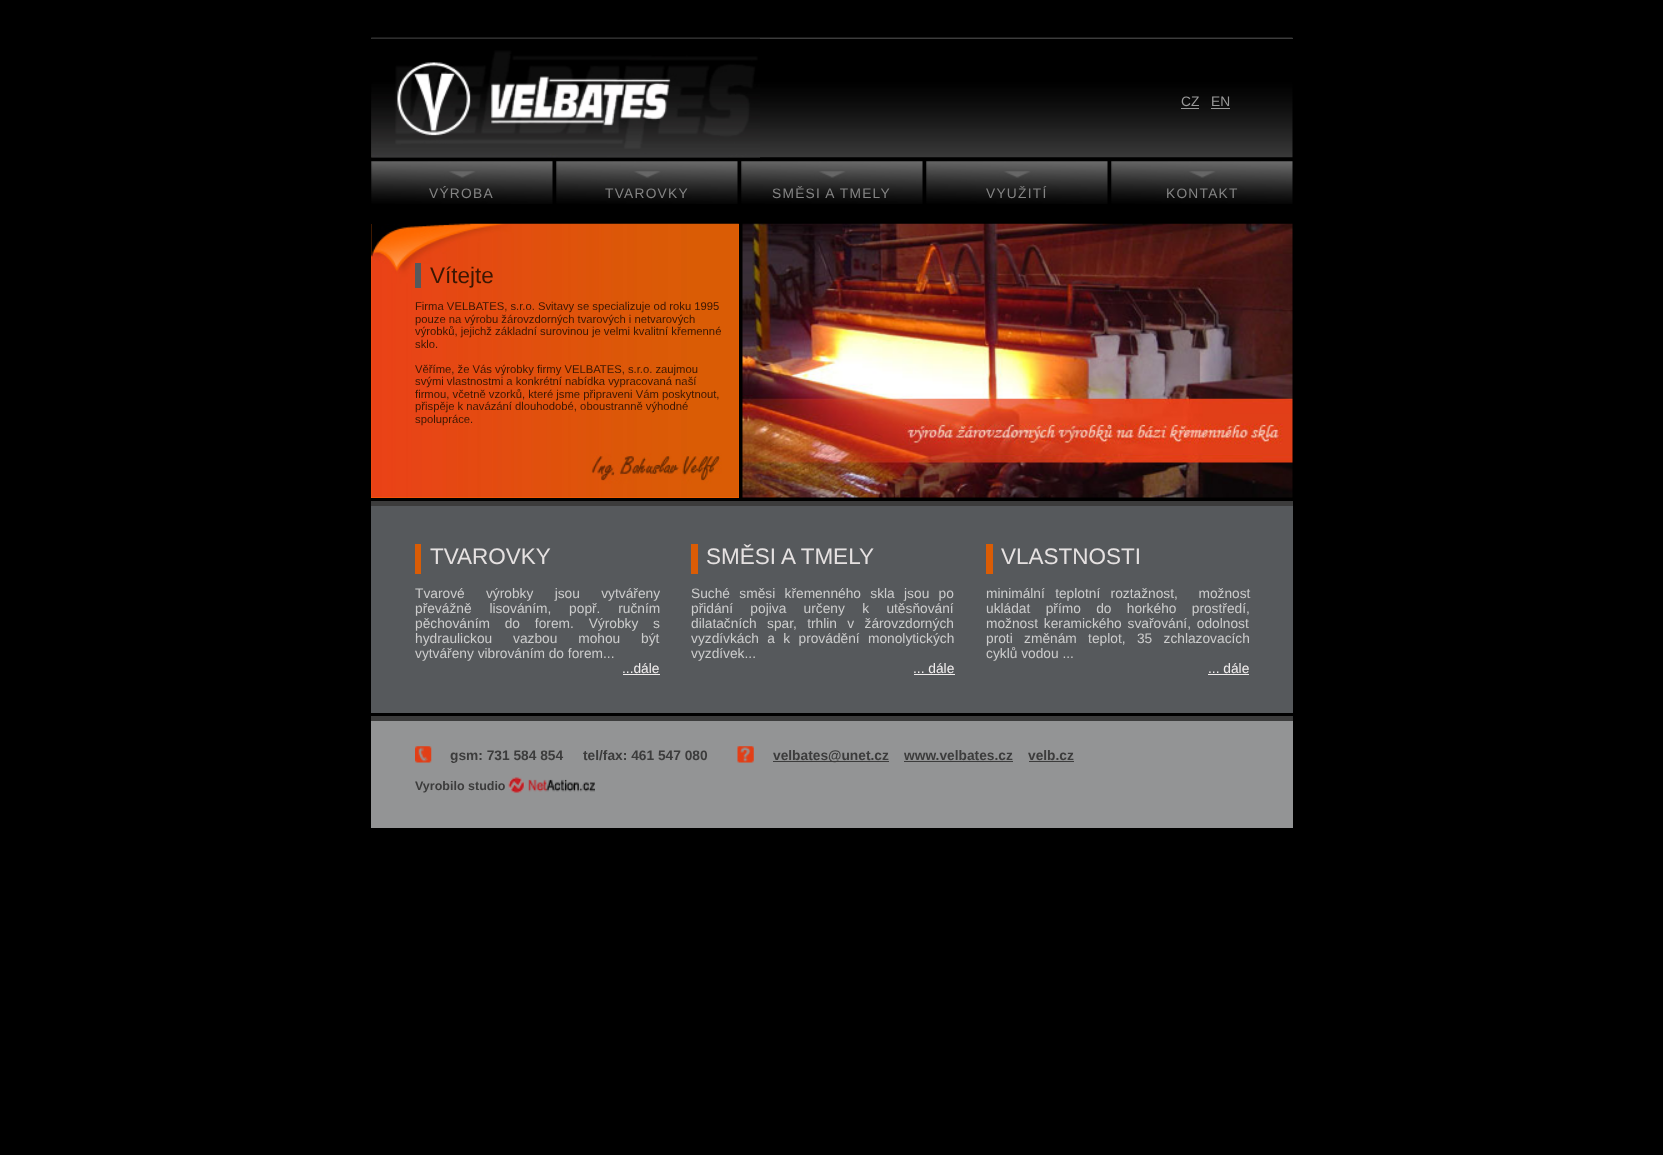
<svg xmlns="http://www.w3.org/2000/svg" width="1663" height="1155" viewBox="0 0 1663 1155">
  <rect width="100%" height="100%" fill="#000000"/>
  <image x="371" y="37" width="922" height="121" href="img1.png"/>
  <rect x="371" y="38" width="922" height="1" fill="#3c3c3c"/>
  <image x="371" y="38" width="389" height="120" href="img2.png"/>
  <text x="1181" y="106" font-family="Liberation Sans" font-size="13.75" fill="#999999">CZ</text>
  <rect x="1181" y="108" width="18" height="1" fill="#999999"/>
  <text x="1211" y="106" font-family="Liberation Sans" font-size="13.75" fill="#999999">EN</text>
  <rect x="1211" y="108" width="19" height="1" fill="#999999"/>
  <image x="371" y="161" width="182" height="43" href="img3.png"/>
  <text x="429" y="198" font-family="Liberation Sans" font-size="13.75" letter-spacing="1.25" fill="#848484">VÝROBA</text>
  <image x="556" y="161" width="182" height="43" href="img4.png"/>
  <text x="605" y="198" font-family="Liberation Sans" font-size="13.75" letter-spacing="1.25" fill="#848484">TVAROVKY</text>
  <image x="741" y="161" width="182" height="43" href="img4.png"/>
  <text x="772" y="198" font-family="Liberation Sans" font-size="13.75" letter-spacing="1.25" fill="#848484">SMĚSI A TMELY</text>
  <image x="926" y="161" width="182" height="43" href="img3.png"/>
  <text x="986" y="198" font-family="Liberation Sans" font-size="13.75" letter-spacing="1.25" fill="#848484">VYUŽITÍ</text>
  <image x="1111" y="161" width="182" height="43" href="img3.png"/>
  <text x="1166" y="198" font-family="Liberation Sans" font-size="13.75" letter-spacing="1.25" fill="#848484">KONTAKT</text>
  <rect x="371" y="224" width="368" height="274" fill="#ff6600"/>
  <image x="371" y="223" width="368" height="275" href="img5.png"/>
  <rect x="415" y="263" width="6" height="25" fill="#56595c"/>
  <text x="430" y="283" font-family="Liberation Sans" font-size="22.5" fill="#3b1703">Vítejte</text>
  <text x="415" y="310" font-family="Liberation Sans" font-size="11.25" fill="#3b1703">Firma VELBATES, s.r.o. Svitavy se specializuje od roku 1995</text>
  <text x="415" y="323" font-family="Liberation Sans" font-size="11.25" fill="#3b1703">pouze na výrobu žárovzdorných tvarových i netvarových</text>
  <text x="415" y="335" font-family="Liberation Sans" font-size="11.25" fill="#3b1703">výrobků, jejichž základní surovinou je velmi kvalitní křemenné</text>
  <text x="415" y="348" font-family="Liberation Sans" font-size="11.25" fill="#3b1703">sklo.</text>
  <text x="415" y="373" font-family="Liberation Sans" font-size="11.25" fill="#3b1703">Věříme, že Vás výrobky firmy VELBATES, s.r.o. zaujmou</text>
  <text x="415" y="385" font-family="Liberation Sans" font-size="11.25" fill="#3b1703">svými vlastnostmi a konkrétní nabídka vypracovaná naší</text>
  <text x="415" y="398" font-family="Liberation Sans" font-size="11.25" fill="#3b1703">firmou, včetně vzorků, které jsme připraveni Vám poskytnout,</text>
  <text x="415" y="410" font-family="Liberation Sans" font-size="11.25" fill="#3b1703">přispěje k navázání dlouhodobé, oboustranně výhodné</text>
  <text x="415" y="423" font-family="Liberation Sans" font-size="11.25" fill="#3b1703">spolupráce.</text>
  <image x="742" y="223" width="551" height="275" href="img6.png"/>
  <rect x="371" y="506" width="922" height="207" fill="#56595c"/>
  <rect x="371" y="501" width="922" height="5" fill="#3c3c3c"/>
  <rect x="415" y="544" width="6" height="30" fill="#da5c05"/>
  <text x="430" y="564" font-family="Liberation Sans" font-size="22.5" fill="#e5e1e1">TVAROVKY</text>
  <text x="415" y="598" word-spacing="17.5" font-family="Liberation Sans" font-size="13.75" fill="#cccccc">Tvarové výrobky jsou vytvářeny</text>
  <text x="415" y="613" word-spacing="14" font-family="Liberation Sans" font-size="13.75" fill="#cccccc">převážně lisováním, popř. ručním</text>
  <text x="415" y="628" word-spacing="11" font-family="Liberation Sans" font-size="13.75" fill="#cccccc">pěchováním do forem. Výrobky s</text>
  <text x="415" y="643" word-spacing="17" font-family="Liberation Sans" font-size="13.75" fill="#cccccc">hydraulickou vazbou mohou být</text>
  <text x="415" y="658" font-family="Liberation Sans" font-size="13.75" fill="#cccccc">vytvářeny vibrováním do forem...</text>
  <text x="622" y="673" font-family="Liberation Sans" font-size="13.75" fill="#f1eeee">...dále</text>
  <rect x="623" y="674" width="37" height="1" fill="#f1eeee"/>
  <rect x="691" y="544" width="7" height="30" fill="#da5c05"/>
  <text x="706" y="564" font-family="Liberation Sans" font-size="22.5" fill="#e5e1e1">SMĚSI A TMELY</text>
  <text x="691" y="598" word-spacing="5.5" font-family="Liberation Sans" font-size="13.75" fill="#cccccc">Suché směsi křemenného skla jsou po</text>
  <text x="691" y="613" word-spacing="13.5" font-family="Liberation Sans" font-size="13.75" fill="#cccccc">přidání pojiva určeny k utěsňování</text>
  <text x="691" y="628" word-spacing="6.5" font-family="Liberation Sans" font-size="13.75" fill="#cccccc">dilatačních spar, trhlin v žárovzdorných</text>
  <text x="691" y="643" word-spacing="4.5" font-family="Liberation Sans" font-size="13.75" fill="#cccccc">vyzdívkách a k provádění monolytických</text>
  <text x="691" y="658" font-family="Liberation Sans" font-size="13.75" fill="#cccccc">vyzdívek...</text>
  <text x="913" y="673" font-family="Liberation Sans" font-size="13.75" fill="#f1eeee">... dále</text>
  <rect x="914" y="674" width="41" height="1" fill="#f1eeee"/>
  <rect x="986" y="544" width="7" height="30" fill="#da5c05"/>
  <text x="1001" y="564" font-family="Liberation Sans" font-size="22.5" fill="#e5e1e1">VLASTNOSTI</text>
  <text x="986" y="598" word-spacing="6.5" font-family="Liberation Sans" font-size="13.75" fill="#cccccc" xml:space="preserve">minimální teplotní roztažnost,  možnost</text>
  <text x="986" y="613" word-spacing="11.5" font-family="Liberation Sans" font-size="13.75" fill="#cccccc">ukládat přímo do horkého prostředí,</text>
  <text x="986" y="628" word-spacing="2" font-family="Liberation Sans" font-size="13.75" fill="#cccccc">možnost keramického svařování, odolnost</text>
  <text x="986" y="643" word-spacing="7.5" font-family="Liberation Sans" font-size="13.75" fill="#cccccc">proti změnám teplot, 35 zchlazovacích</text>
  <text x="986" y="658" font-family="Liberation Sans" font-size="13.75" fill="#cccccc">cyklů vodou ...</text>
  <text x="1208" y="673" font-family="Liberation Sans" font-size="13.75" fill="#f1eeee">... dále</text>
  <rect x="1208" y="674" width="41" height="1" fill="#f1eeee"/>
  <rect x="371" y="721" width="922" height="107" fill="#939495"/>
  <rect x="371" y="716" width="922" height="5" fill="#3c3c3c"/>
  <image x="415" y="746" width="17" height="17" href="img7.png"/>
  <text x="450" y="760" font-family="Liberation Sans" font-size="13.75" font-weight="bold" fill="#3c3c3c">gsm: 731 584 854</text>
  <text x="583" y="760" font-family="Liberation Sans" font-size="13.75" font-weight="bold" fill="#3c3c3c">tel/fax: 461 547 080</text>
  <image x="737" y="746" width="17" height="17" href="img8.png"/>
  <rect x="773" y="761" width="116" height="1" fill="#3c3c3c"/>
  <text x="773" y="760" font-family="Liberation Sans" font-size="13.75" font-weight="bold" fill="#3c3c3c">velbates@unet.cz</text>
  <text x="904" y="760" font-family="Liberation Sans" font-size="13.75" font-weight="bold" fill="#3c3c3c">www.velbates.cz</text>
  <rect x="904" y="761" width="109" height="1" fill="#3c3c3c"/>
  <text x="1028" y="760" font-family="Liberation Sans" font-size="13.75" font-weight="bold" fill="#3c3c3c">velb.cz</text>
  <rect x="1029" y="761" width="45" height="1" fill="#3c3c3c"/>
  <text x="415" y="790" font-family="Liberation Sans" font-size="12.5" font-weight="bold" fill="#3c3c3c">Vyrobilo studio</text>
  <image x="508" y="777" width="87" height="16" href="img9.png"/>
</svg>
